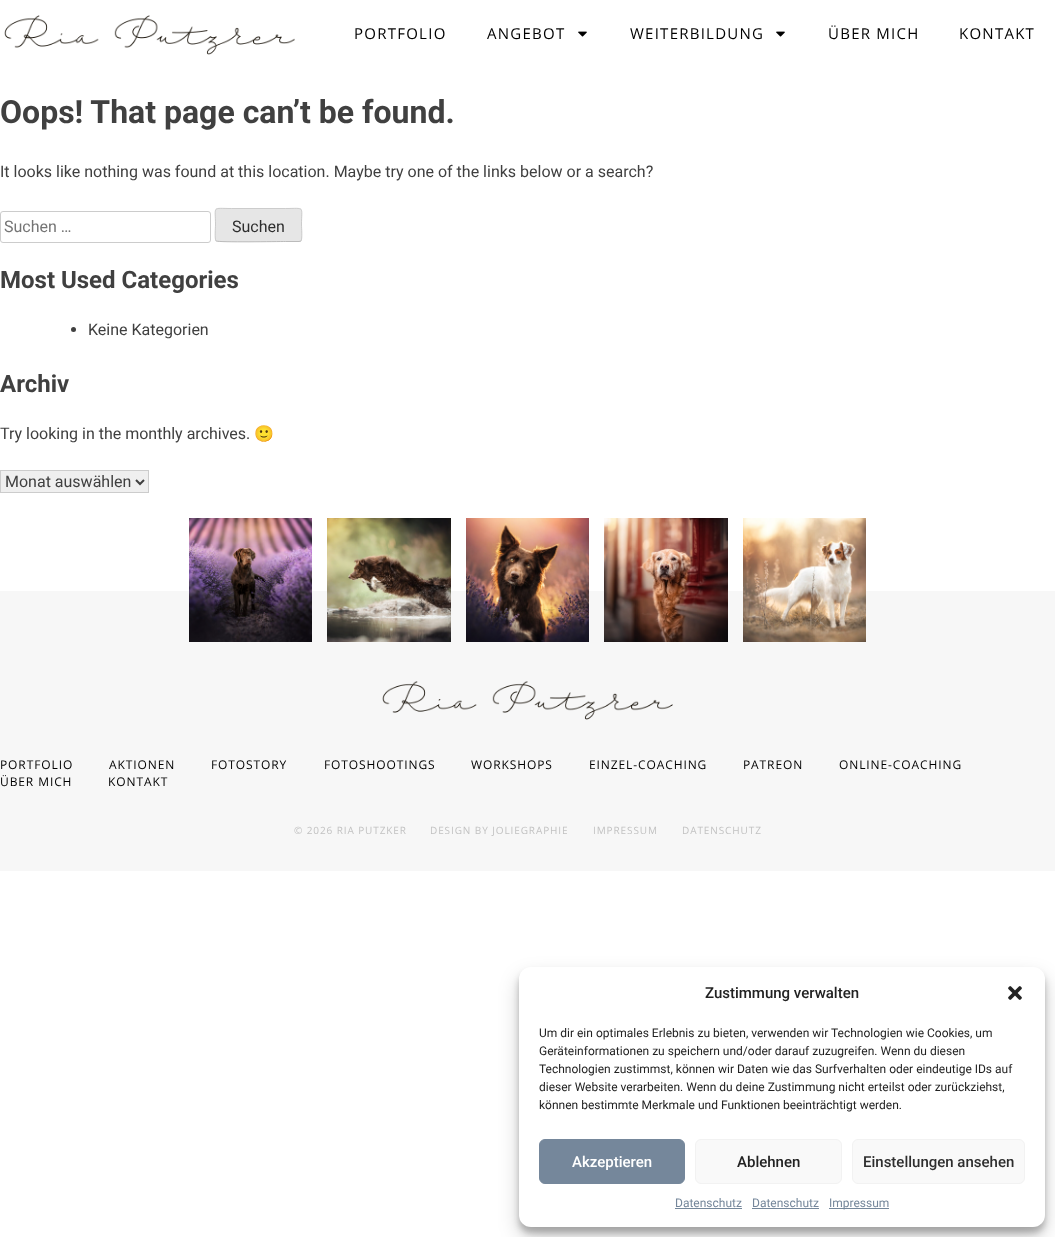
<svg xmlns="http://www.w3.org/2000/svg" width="1055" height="1237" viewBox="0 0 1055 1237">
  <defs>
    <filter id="blur1" x="-50%" y="-200%" width="200%" height="500%"><feGaussianBlur stdDeviation="3"/></filter>
    <filter id="blur2" x="-50%" y="-200%" width="200%" height="500%"><feGaussianBlur stdDeviation="10"/></filter>
  </defs>
  <rect width="100%" height="100%" fill="#ffffff"/>
  <image x="4" y="15" width="291" height="40" href="img1.png"/>
  <text x="354" y="39" font-family="Open Sans" font-size="15" letter-spacing="1.25" fill="#000000">PORTFOLIO</text>
  <text x="487" y="39" font-family="Open Sans" font-size="15" letter-spacing="1.25" fill="#000000">ANGEBOT</text>
  <image x="578" y="31" width="9" height="6" href="img2.png"/>
  <text x="630" y="39" font-family="Open Sans" font-size="15" letter-spacing="1.25" fill="#000000">WEITERBILDUNG</text>
  <image x="776" y="31" width="9" height="6" href="img2.png"/>
  <text x="828" y="39" font-family="Open Sans" font-size="15" letter-spacing="1.25" fill="#000000">ÜBER MICH</text>
  <text x="959" y="39" font-family="Open Sans" font-size="15" letter-spacing="1.25" fill="#000000">KONTAKT</text>
  <text x="0" y="123" font-family="Roboto" font-size="32" font-weight="bold" fill="#404040">Oops! That page can’t be found.</text>
  <text x="0" y="177" font-family="Roboto" font-size="16" fill="#404040">It looks like nothing was found at this location. Maybe try one of the links below or a search?</text>
  <rect x="0.5" y="211.5" width="210" height="31" rx="2.5" fill="none" stroke="#cccccc"/>
  <text x="4" y="232" font-family="Roboto" font-size="16" fill="#757575">Suchen …</text>
  <rect x="215" y="208" width="87" height="34" rx="3" fill="#e6e6e6"/>
  <path d="M301 241L299 241.5H285.5C278 241.5 218.5 242.5 216.5 241H216" fill="none" stroke="#bbbbbb"/>
  <path d="M216 241C214.5 239 215.5 227.5 215.5 225C215.5 205.5 211.5 208.5 231.5 208.5H285.5C305.5 208.5 301.5 205.5 301.5 225C301.5 227.5 302.5 239 301 241" fill="none" stroke="#cccccc"/>
  <text x="232" y="232" font-family="Roboto" font-size="16" fill="#2e2e2e">Suchen</text>
  <text x="0" y="288" font-family="Roboto" font-size="24" font-weight="bold" fill="#404040">Most Used Categories</text>
  <circle cx="73.5" cy="329.5" r="2.5" fill="#404040"/>
  <text x="88" y="335" font-family="Roboto" font-size="16" fill="#404040">Keine Kategorien</text>
  <text x="0" y="392" font-family="Roboto" font-size="24" font-weight="bold" fill="#404040">Archiv</text>
  <text x="0" y="439" font-family="Roboto" font-size="16" fill="#404040">Try looking in the monthly archives.</text>
  <text x="254" y="439" font-family="Noto Color Emoji" font-size="16" fill="#404040">🙂</text>
  <rect x="0.5" y="470.5" width="148" height="22" fill="#efefef" stroke="#cccccc"/>
  <path d="M136 480L140 484L144 480" fill="none" stroke="#404040" stroke-width="2"/>
  <text x="5" y="487" font-family="Roboto" font-size="16" fill="#404040">Monat auswählen</text>
  <rect x="0" y="591" width="1055" height="280" fill="#f7f7f7"/>
  <image x="189" y="518" width="123" height="124" href="img3.png"/>
  <image x="327" y="518" width="124" height="124" href="img4.png"/>
  <image x="466" y="518" width="123" height="124" href="img5.png"/>
  <image x="604" y="518" width="124" height="124" href="img6.png"/>
  <image x="743" y="518" width="123" height="124" href="img7.png"/>
  <image x="382" y="681" width="291" height="39" href="img8.png"/>
  <text x="0" y="769" font-family="Open Sans" font-size="12" letter-spacing="0.9" fill="#000000">PORTFOLIO</text>
  <text x="109" y="769" font-family="Open Sans" font-size="12" letter-spacing="0.9" fill="#000000">AKTIONEN</text>
  <text x="211" y="769" font-family="Open Sans" font-size="12" letter-spacing="0.9" fill="#000000">FOTOSTORY</text>
  <text x="324" y="769" font-family="Open Sans" font-size="12" letter-spacing="0.9" fill="#000000">FOTOSHOOTINGS</text>
  <text x="471" y="769" font-family="Open Sans" font-size="12" letter-spacing="0.9" fill="#000000">WORKSHOPS</text>
  <text x="589" y="769" font-family="Open Sans" font-size="12" letter-spacing="0.9" fill="#000000">EINZEL-COACHING</text>
  <text x="743" y="769" font-family="Open Sans" font-size="12" letter-spacing="0.9" fill="#000000">PATREON</text>
  <text x="839" y="769" font-family="Open Sans" font-size="12" letter-spacing="0.9" fill="#000000">ONLINE-COACHING</text>
  <text x="0" y="786" font-family="Open Sans" font-size="12" letter-spacing="0.9" fill="#000000">ÜBER MICH</text>
  <text x="108" y="786" font-family="Open Sans" font-size="12" letter-spacing="0.9" fill="#000000">KONTAKT</text>
  <text x="294" y="834" font-family="Open Sans" font-size="10" letter-spacing="0.9" fill="#c2c2c2">© 2026 RIA PUTZKER</text>
  <text x="430" y="834" font-family="Open Sans" font-size="10" letter-spacing="0.9" fill="#c2c2c2">DESIGN BY JOLIEGRAPHIE</text>
  <text x="593" y="834" font-family="Open Sans" font-size="10" letter-spacing="0.9" fill="#c2c2c2">IMPRESSUM</text>
  <text x="682" y="834" font-family="Open Sans" font-size="10" letter-spacing="0.9" fill="#c2c2c2">DATENSCHUTZ</text>
  <rect x="519" y="973" width="526" height="260" rx="12" fill="#000000" fill-opacity="0.23" filter="url(#blur1)"/>
  <rect x="519" y="977" width="526" height="260" rx="12" fill="#000000" fill-opacity="0.19" filter="url(#blur2)"/>
  <rect x="519" y="967" width="526" height="260" rx="12" fill="#ffffff"/>
  <text x="705" y="998" font-family="Roboto" font-size="15" font-weight="500" fill="#222222">Zustimmung verwalten</text>
  <image x="1008" y="986" width="14" height="14" href="img9.png"/>
  <text x="539" y="1037" font-family="Roboto" font-size="12" fill="#222222">Um dir ein optimales Erlebnis zu bieten, verwenden wir Technologien wie Cookies, um</text>
  <text x="539" y="1055" font-family="Roboto" font-size="12" fill="#222222">Geräteinformationen zu speichern und/oder darauf zuzugreifen. Wenn du diesen</text>
  <text x="539" y="1073" font-family="Roboto" font-size="12" fill="#222222">Technologien zustimmst, können wir Daten wie das Surfverhalten oder eindeutige IDs auf</text>
  <text x="539" y="1091" font-family="Roboto" font-size="12" fill="#222222">dieser Website verarbeiten. Wenn du deine Zustimmung nicht erteilst oder zurückziehst,</text>
  <text x="539" y="1109" font-family="Roboto" font-size="12" fill="#222222">können bestimmte Merkmale und Funktionen beeinträchtigt werden.</text>
  <rect x="539.5" y="1139.5" width="145" height="44" rx="5.5" fill="#75879b" stroke="#75879b"/>
  <text x="572" y="1167" font-family="Roboto" font-size="15" font-weight="500" fill="#ffffff">Akzeptieren</text>
  <rect x="695.5" y="1139.5" width="146" height="44" rx="5.5" fill="#f9f9f9" stroke="#f2f2f2"/>
  <text x="737" y="1167" font-family="Roboto" font-size="15" font-weight="500" fill="#222222">Ablehnen</text>
  <rect x="852.5" y="1139.5" width="172" height="44" rx="5.5" fill="#f9f9f9" stroke="#f2f2f2"/>
  <text x="863" y="1167" font-family="Roboto" font-size="15" font-weight="500" fill="#2e2e2e">Einstellungen ansehen</text>
  <text x="675" y="1207" font-family="Roboto" font-size="12" fill="#75879b">Datenschutz</text>
  <rect x="675" y="1208" width="67" height="1" fill="#75879b"/>
  <text x="752" y="1207" font-family="Roboto" font-size="12" fill="#75879b">Datenschutz</text>
  <rect x="752" y="1208" width="67" height="1" fill="#75879b"/>
  <rect x="829" y="1208" width="60" height="1" fill="#75879b"/>
  <text x="829" y="1207" font-family="Roboto" font-size="12" fill="#75879b">Impressum</text>
</svg>
